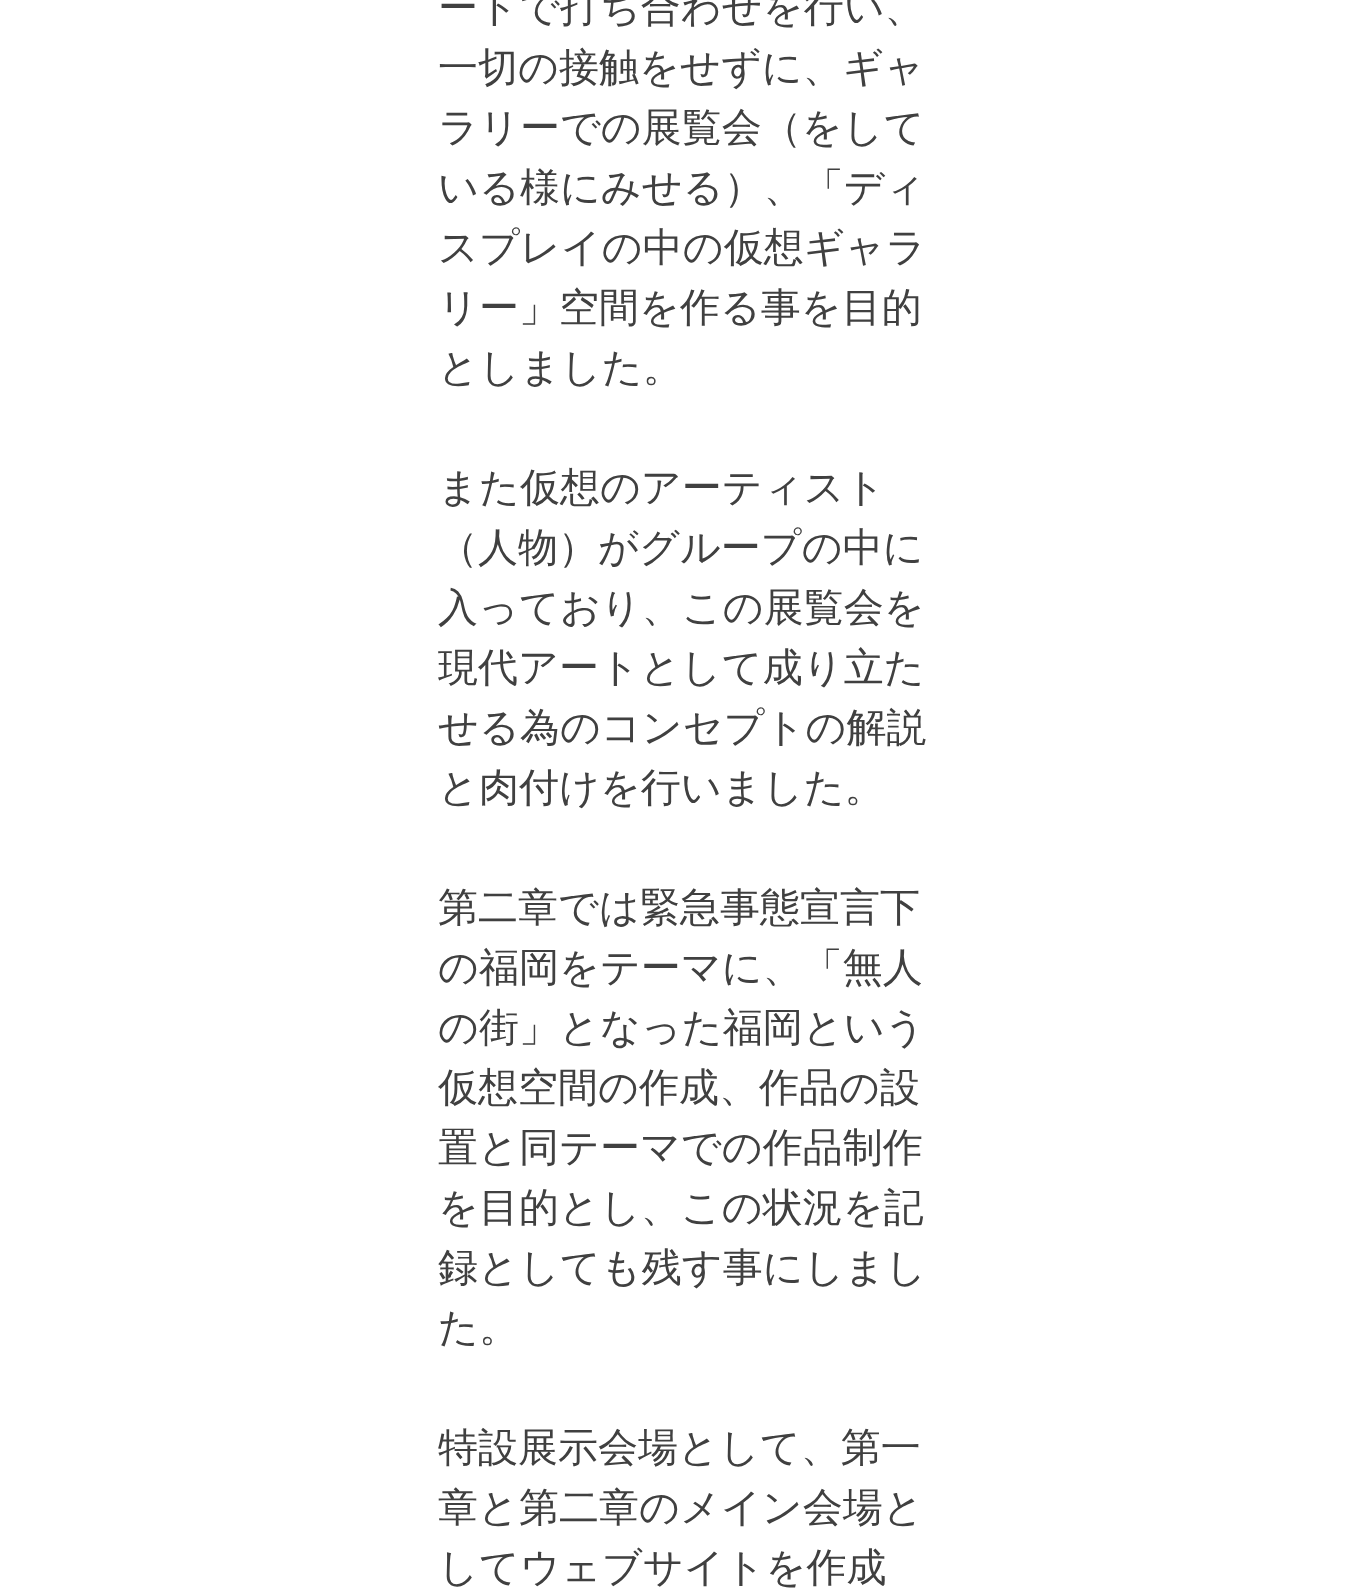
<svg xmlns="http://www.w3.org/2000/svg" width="1367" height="1596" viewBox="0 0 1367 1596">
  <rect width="100%" height="100%" fill="#ffffff"/>
  <text x="438" y="21" font-family="WenQuanYi Zen Hei" font-size="40" font-weight="500" fill="#404040">ートで打ち合わせを行い、</text>
  <text x="438" y="81" font-family="WenQuanYi Zen Hei" font-size="40" font-weight="500" fill="#404040">一切の接触をせずに、ギャ</text>
  <text x="438" y="141" font-family="WenQuanYi Zen Hei" font-size="40" font-weight="500" fill="#404040">ラリーでの展覧会（をして</text>
  <text x="438" y="201" font-family="WenQuanYi Zen Hei" font-size="40" font-weight="500" fill="#404040">いる様にみせる）、「ディ</text>
  <text x="438" y="261" font-family="WenQuanYi Zen Hei" font-size="40" font-weight="500" fill="#404040">スプレイの中の仮想ギャラ</text>
  <text x="438" y="321" font-family="WenQuanYi Zen Hei" font-size="40" font-weight="500" fill="#404040">リー」空間を作る事を目的</text>
  <text x="438" y="381" font-family="WenQuanYi Zen Hei" font-size="40" font-weight="500" fill="#404040">としました。</text>
  <text x="438" y="501" font-family="WenQuanYi Zen Hei" font-size="40" font-weight="500" fill="#404040">また仮想のアーティスト</text>
  <text x="438" y="561" font-family="WenQuanYi Zen Hei" font-size="40" font-weight="500" fill="#404040">（人物）がグループの中に</text>
  <text x="438" y="621" font-family="WenQuanYi Zen Hei" font-size="40" font-weight="500" fill="#404040">入っており、この展覧会を</text>
  <text x="438" y="681" font-family="WenQuanYi Zen Hei" font-size="40" font-weight="500" fill="#404040">現代アートとして成り立た</text>
  <text x="438" y="741" font-family="WenQuanYi Zen Hei" font-size="40" font-weight="500" fill="#404040">せる為のコンセプトの解説</text>
  <text x="438" y="801" font-family="WenQuanYi Zen Hei" font-size="40" font-weight="500" fill="#404040">と肉付けを行いました。</text>
  <text x="438" y="921" font-family="WenQuanYi Zen Hei" font-size="40" font-weight="500" fill="#404040">第二章では緊急事態宣言下</text>
  <text x="438" y="981" font-family="WenQuanYi Zen Hei" font-size="40" font-weight="500" fill="#404040">の福岡をテーマに、「無人</text>
  <text x="438" y="1041" font-family="WenQuanYi Zen Hei" font-size="40" font-weight="500" fill="#404040">の街」となった福岡という</text>
  <text x="438" y="1101" font-family="WenQuanYi Zen Hei" font-size="40" font-weight="500" fill="#404040">仮想空間の作成、作品の設</text>
  <text x="438" y="1161" font-family="WenQuanYi Zen Hei" font-size="40" font-weight="500" fill="#404040">置と同テーマでの作品制作</text>
  <text x="438" y="1221" font-family="WenQuanYi Zen Hei" font-size="40" font-weight="500" fill="#404040">を目的とし、この状況を記</text>
  <text x="438" y="1281" font-family="WenQuanYi Zen Hei" font-size="40" font-weight="500" fill="#404040">録としても残す事にしまし</text>
  <text x="438" y="1341" font-family="WenQuanYi Zen Hei" font-size="40" font-weight="500" fill="#404040">た。</text>
  <text x="438" y="1461" font-family="WenQuanYi Zen Hei" font-size="40" font-weight="500" fill="#404040">特設展示会場として、第一</text>
  <text x="438" y="1521" font-family="WenQuanYi Zen Hei" font-size="40" font-weight="500" fill="#404040">章と第二章のメイン会場と</text>
  <text x="438" y="1581" font-family="WenQuanYi Zen Hei" font-size="40" font-weight="500" fill="#404040">してウェブサイトを作成</text>
</svg>
